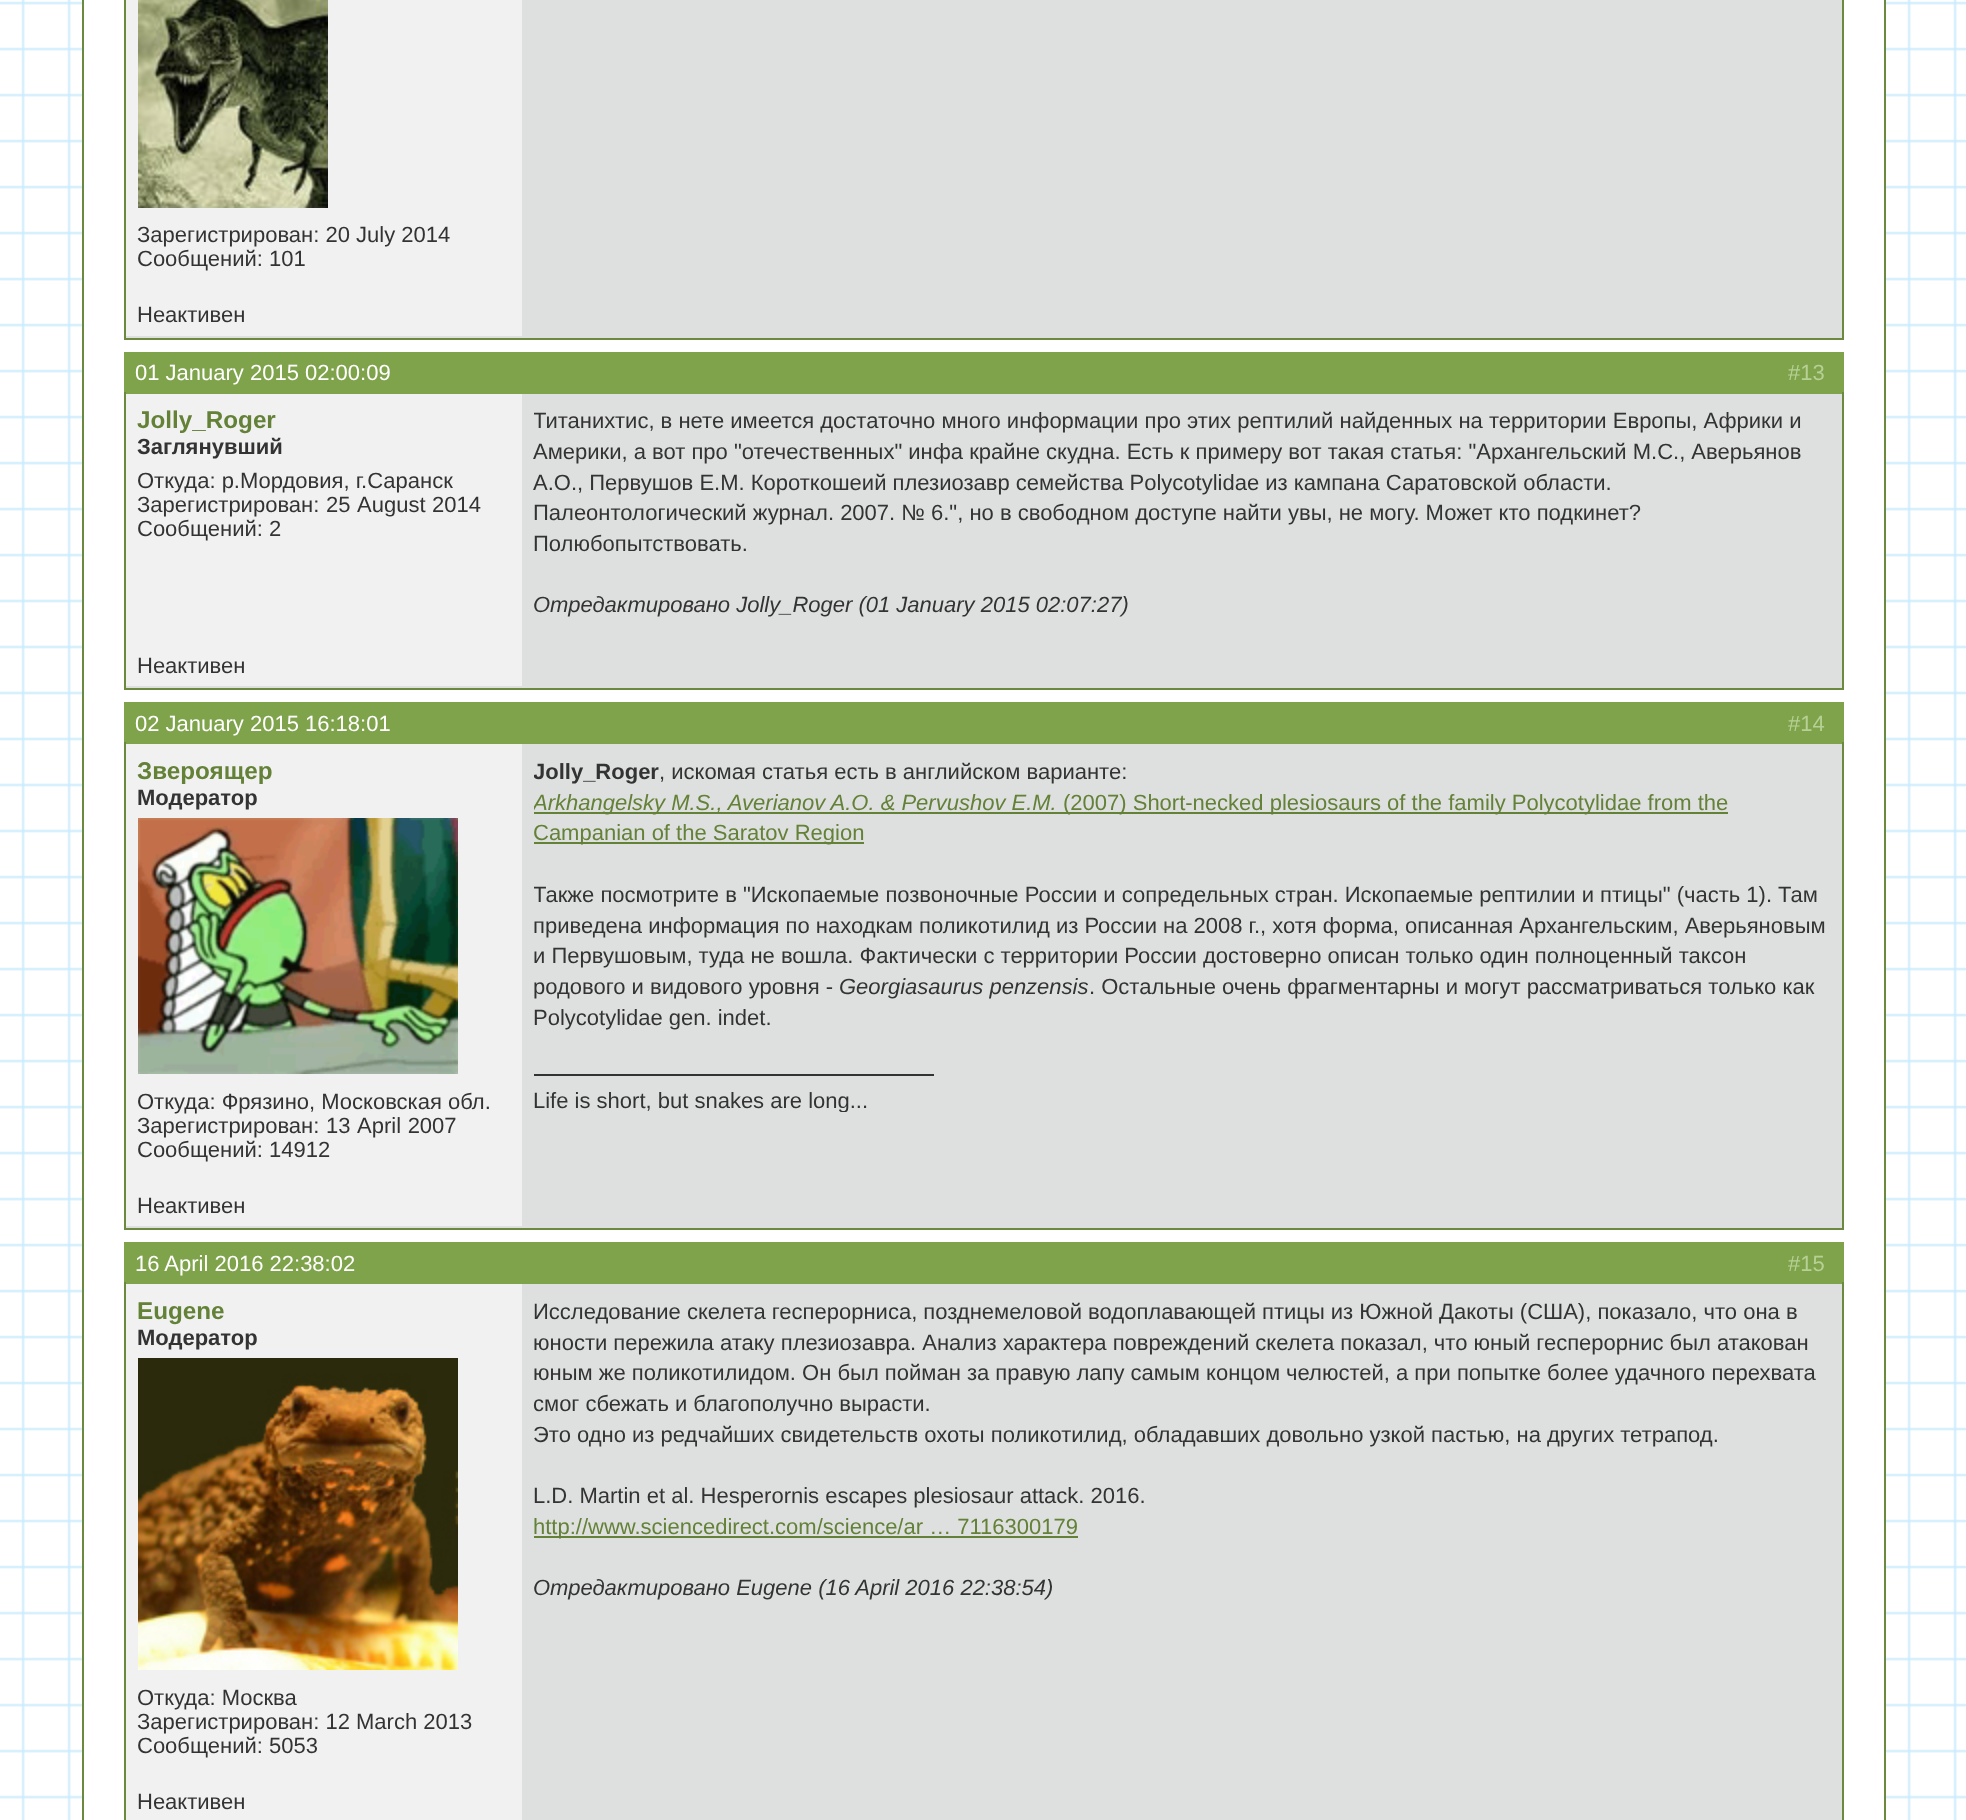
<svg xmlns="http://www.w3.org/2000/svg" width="1966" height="1820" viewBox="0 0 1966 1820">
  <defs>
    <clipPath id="clip1"><rect x="534" y="406" width="1296" height="214"/></clipPath>
    <clipPath id="clip2"><rect x="534" y="756" width="1296" height="278"/></clipPath>
    <clipPath id="clip3"><rect x="534" y="1034" width="1296" height="78"/></clipPath>
  </defs>
  <rect width="100%" height="100%" fill="#ffffff"/>
  <image x="0" y="0" width="1966" height="1820" href="img1.png"/>
  <rect x="84" y="0" width="1800" height="1820" fill="#ffffff"/>
  <rect x="1884" y="0" width="2" height="1820" fill="#6c8a3f"/>
  <rect x="82" y="0" width="2" height="1820" fill="#6c8a3f"/>
  <rect x="126" y="0" width="1716" height="338" fill="#dedfdf"/>
  <rect x="1842" y="0" width="2" height="340" fill="#6c8a3f"/>
  <rect x="124" y="338" width="1720" height="2" fill="#6c8a3f"/>
  <rect x="124" y="0" width="2" height="340" fill="#6c8a3f"/>
  <rect x="126" y="0" width="396" height="336" fill="#f1f1f1"/>
  <image x="138" y="0" width="190" height="208" href="img2.png"/>
  <text x="137" y="242" font-family="Liberation Sans" font-size="22" fill="#333333">Зарегистрирован: 20 July 2014</text>
  <text x="137" y="266" font-family="Liberation Sans" font-size="22" fill="#333333">Сообщений: 101</text>
  <text x="137" y="322" font-family="Liberation Sans" font-size="22" fill="#333333">Неактивен</text>
  <rect x="124" y="352" width="1720" height="42" fill="#7ea34b"/>
  <text x="135" y="380" font-family="Liberation Sans" font-size="22" fill="#ffffff">01 January 2015 02:00:09</text>
  <text x="1788" y="380" font-family="Liberation Sans" font-size="22" fill="#b7d094">#13</text>
  <rect x="126" y="394" width="1716" height="294" fill="#dedfdf"/>
  <rect x="1842" y="392" width="2" height="298" fill="#6c8a3f"/>
  <rect x="124" y="688" width="1720" height="2" fill="#6c8a3f"/>
  <rect x="124" y="392" width="2" height="298" fill="#6c8a3f"/>
  <rect x="126" y="394" width="396" height="292" fill="#f1f1f1"/>
  <text x="137" y="428" font-family="Liberation Sans" font-size="24.25" font-weight="bold" fill="#638137">Jolly_Roger</text>
  <text x="137" y="454" font-family="Liberation Sans" font-size="22" font-weight="bold" fill="#333333">Заглянувший</text>
  <text x="137" y="488" font-family="Liberation Sans" font-size="22" fill="#333333">Откуда: р.Мордовия, г.Саранск</text>
  <text x="137" y="512" word-spacing="0.5" font-family="Liberation Sans" font-size="22" fill="#333333">Зарегистрирован: 25 August 2014</text>
  <text x="137" y="536" font-family="Liberation Sans" font-size="22" fill="#333333">Сообщений: 2</text>
  <g clip-path="url(#clip1)">
    <text x="533" y="428" font-family="Liberation Sans" font-size="22" fill="#333333">Титанихтис, в нете имеется достаточно много информации про этих рептилий найденных на территории Европы, Африки и</text>
  </g>
  <text x="533" y="459" font-family="Liberation Sans" font-size="22" fill="#333333">Америки, а вот про "отечественных" инфа крайне скудна. Есть к примеру вот такая статья: "Архангельский М.С., Аверьянов</text>
  <text x="533" y="490" font-family="Liberation Sans" font-size="22" fill="#333333">А.О., Первушов Е.М. Короткошеий плезиозавр семейства Polycotylidae из кампана Саратовской области.</text>
  <text x="533" y="520" font-family="Liberation Sans" font-size="22" fill="#333333">Палеонтологический журнал. 2007. № 6.", но в свободном доступе найти увы, не могу. Может кто подкинет?</text>
  <text x="533" y="551" font-family="Liberation Sans" font-size="22" fill="#333333">Полюбопытствовать.</text>
  <text x="533" y="612" font-family="Liberation Sans" font-size="22" font-style="italic" fill="#333333">Отредактировано Jolly_Roger (01 January 2015 02:07:27)</text>
  <text x="137" y="673" font-family="Liberation Sans" font-size="22" fill="#333333">Неактивен</text>
  <rect x="124" y="702" width="1720" height="42" fill="#7ea34b"/>
  <text x="135" y="731" font-family="Liberation Sans" font-size="22" fill="#ffffff">02 January 2015 16:18:01</text>
  <text x="1788" y="731" font-family="Liberation Sans" font-size="22" fill="#b7d094">#14</text>
  <rect x="126" y="744" width="1716" height="484" fill="#dedfdf"/>
  <rect x="1842" y="742" width="2" height="488" fill="#6c8a3f"/>
  <rect x="124" y="1228" width="1720" height="2" fill="#6c8a3f"/>
  <rect x="124" y="742" width="2" height="488" fill="#6c8a3f"/>
  <rect x="126" y="744" width="396" height="482" fill="#f1f1f1"/>
  <text x="137" y="779" font-family="Liberation Sans" font-size="24.25" font-weight="bold" fill="#638137">Звероящер</text>
  <text x="137" y="805" font-family="Liberation Sans" font-size="22" font-weight="bold" fill="#333333">Модератор</text>
  <image x="138" y="818" width="320" height="256" href="img3.png"/>
  <text x="137" y="1109" font-family="Liberation Sans" font-size="22" fill="#333333">Откуда: Фрязино, Московская обл.</text>
  <text x="137" y="1133" word-spacing="0.5" font-family="Liberation Sans" font-size="22" fill="#333333">Зарегистрирован: 13 April 2007</text>
  <text x="137" y="1157" font-family="Liberation Sans" font-size="22" fill="#333333">Сообщений: 14912</text>
  <g clip-path="url(#clip2)">
    <text x="533" y="779" font-family="Liberation Sans" font-size="22" font-weight="bold" fill="#333333">Jolly_Roger</text>
  </g>
  <text x="659" y="779" font-family="Liberation Sans" font-size="22" fill="#333333">, искомая статья есть в английском варианте:</text>
  <rect x="534" y="812" width="1194" height="2" fill="#638137"/>
  <g clip-path="url(#clip2)">
    <text x="533" y="810" font-family="Liberation Sans" font-size="22" font-style="italic" fill="#638137">Arkhangelsky M.S., Averianov A.O. &amp; Pervushov E.M.</text>
  </g>
  <text x="1063" y="810" font-family="Liberation Sans" font-size="22" fill="#638137">(2007) Short-necked plesiosaurs of the family Polycotylidae from the</text>
  <rect x="534" y="842" width="330" height="2" fill="#638137"/>
  <text x="533" y="840" font-family="Liberation Sans" font-size="22" fill="#638137">Campanian of the Saratov Region</text>
  <g clip-path="url(#clip2)">
    <text x="533" y="902" font-family="Liberation Sans" font-size="22" fill="#333333">Также посмотрите в "Ископаемые позвоночные России и сопредельных стран. Ископаемые рептилии и птицы" (часть 1). Там</text>
  </g>
  <text x="533" y="933" font-family="Liberation Sans" font-size="22" fill="#333333">приведена информация по находкам поликотилид из России на 2008 г., хотя форма, описанная Архангельским, Аверьяновым</text>
  <text x="533" y="963" font-family="Liberation Sans" font-size="22" fill="#333333">и Первушовым, туда не вошла. Фактически с территории России достоверно описан только один полноценный таксон</text>
  <text x="533" y="994" font-family="Liberation Sans" font-size="22" fill="#333333">родового и видового уровня -</text>
  <text x="839" y="994" font-family="Liberation Sans" font-size="22" font-style="italic" fill="#333333">Georgiasaurus penzensis</text>
  <text x="1089" y="994" font-family="Liberation Sans" font-size="22" fill="#333333">. Остальные очень фрагментарны и могут рассматриваться только как</text>
  <text x="533" y="1025" font-family="Liberation Sans" font-size="22" fill="#333333">Polycotylidae gen. indet.</text>
  <rect x="534" y="1074" width="400" height="2" fill="#333333"/>
  <g clip-path="url(#clip3)">
    <text x="533" y="1108" font-family="Liberation Sans" font-size="22" fill="#333333">Life is short, but snakes are long...</text>
  </g>
  <text x="137" y="1213" font-family="Liberation Sans" font-size="22" fill="#333333">Неактивен</text>
  <rect x="124" y="1242" width="1720" height="42" fill="#7ea34b"/>
  <text x="135" y="1271" font-family="Liberation Sans" font-size="22" fill="#ffffff">16 April 2016 22:38:02</text>
  <text x="1788" y="1271" font-family="Liberation Sans" font-size="22" fill="#b7d094">#15</text>
  <rect x="522" y="1284" width="1320" height="536" fill="#dedfdf"/>
  <rect x="1842" y="1282" width="2" height="538" fill="#6c8a3f"/>
  <rect x="124" y="1282" width="2" height="538" fill="#6c8a3f"/>
  <rect x="126" y="1284" width="396" height="536" fill="#f1f1f1"/>
  <text x="137" y="1319" font-family="Liberation Sans" font-size="24.25" font-weight="bold" fill="#638137">Eugene</text>
  <text x="137" y="1345" font-family="Liberation Sans" font-size="22" font-weight="bold" fill="#333333">Модератор</text>
  <image x="138" y="1358" width="320" height="312" href="img4.png"/>
  <text x="137" y="1705" font-family="Liberation Sans" font-size="22" fill="#333333">Откуда: Москва</text>
  <text x="137" y="1729" font-family="Liberation Sans" font-size="22" fill="#333333">Зарегистрирован: 12 March 2013</text>
  <text x="137" y="1753" font-family="Liberation Sans" font-size="22" fill="#333333">Сообщений: 5053</text>
  <text x="533" y="1319" font-family="Liberation Sans" font-size="22" fill="#333333">Исследование скелета гесперорниса, позднемеловой водоплавающей птицы из Южной Дакоты (США), показало, что она в</text>
  <text x="533" y="1350" font-family="Liberation Sans" font-size="22" fill="#333333">юности пережила атаку плезиозавра. Анализ характера повреждений скелета показал, что юный гесперорнис был атакован</text>
  <text x="533" y="1380" font-family="Liberation Sans" font-size="22" fill="#333333">юным же поликотилидом. Он был пойман за правую лапу самым концом челюстей, а при попытке более удачного перехвата</text>
  <text x="533" y="1411" font-family="Liberation Sans" font-size="22" fill="#333333">смог сбежать и благополучно вырасти.</text>
  <text x="533" y="1442" font-family="Liberation Sans" font-size="22" fill="#333333">Это одно из редчайших свидетельств охоты поликотилид, обладавших довольно узкой пастью, на других тетрапод.</text>
  <text x="533" y="1503" font-family="Liberation Sans" font-size="22" fill="#333333">L.D. Martin et al. Hesperornis escapes plesiosaur attack. 2016.</text>
  <rect x="534" y="1536" width="544" height="2" fill="#638137"/>
  <text x="533" y="1534" font-family="Liberation Sans" font-size="22" fill="#638137">http://www.sciencedirect.com/science/ar … 7116300179</text>
  <text x="533" y="1595" font-family="Liberation Sans" font-size="22" font-style="italic" fill="#333333">Отредактировано Eugene (16 April 2016 22:38:54)</text>
  <text x="137" y="1809" font-family="Liberation Sans" font-size="22" fill="#333333">Неактивен</text>
</svg>
